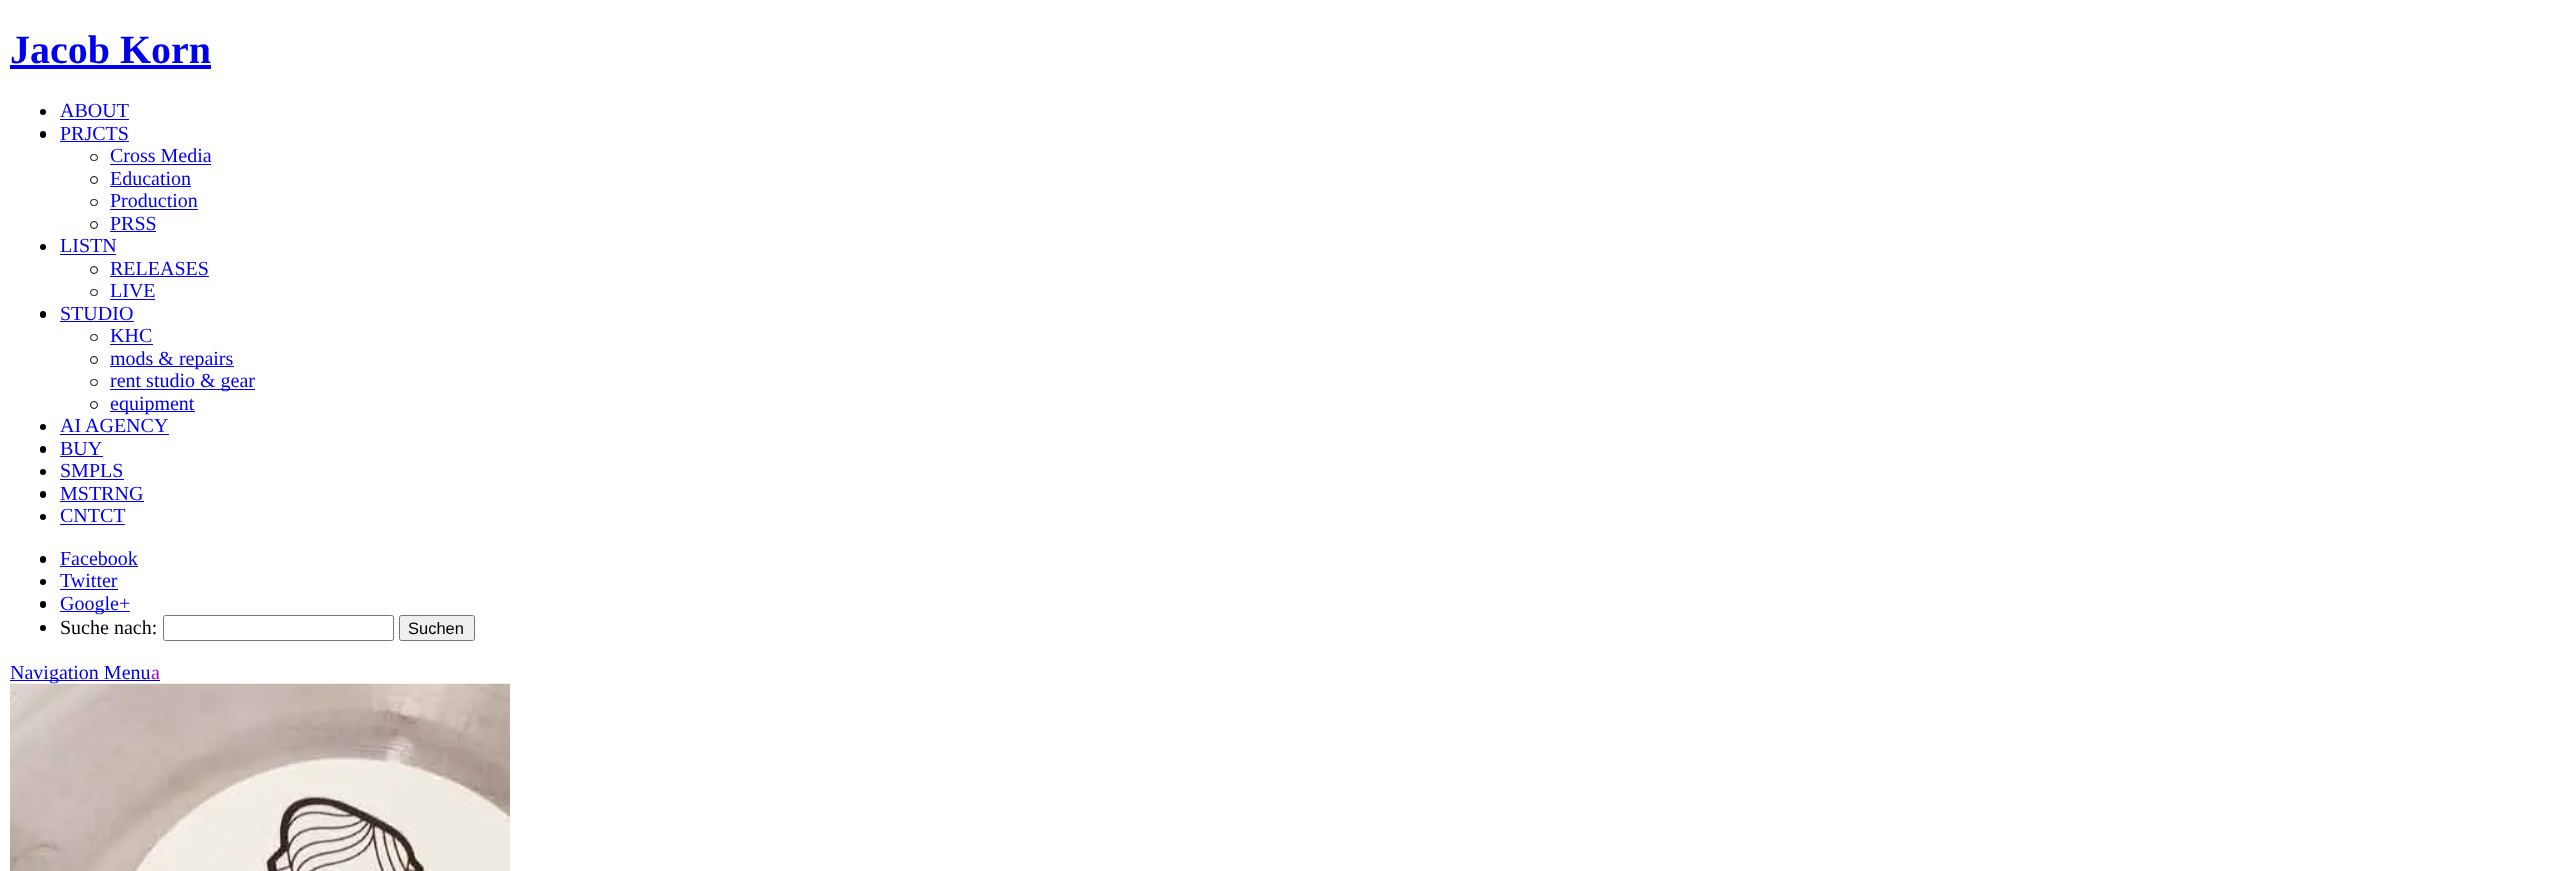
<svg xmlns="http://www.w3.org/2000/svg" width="2555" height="871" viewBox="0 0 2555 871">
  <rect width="100%" height="100%" fill="#ffffff"/>
  <text x="10" y="63" font-family="Liberation Serif" font-size="40" font-weight="bold" fill="#0000ee">Jacob Korn</text>
  <rect x="10" y="65" width="201" height="4" fill="#0000ee"/>
  <circle cx="43" cy="112" r="3" fill="#000000"/>
  <text x="60" y="117" font-family="Liberation Serif" font-size="20" fill="#0000ee">ABOUT</text>
  <rect x="60" y="119" width="69" height="1" fill="#0000ee"/>
  <rect x="40" y="131" width="6" height="7" rx="3" fill="#000000"/>
  <text x="60" y="140" font-family="Liberation Serif" font-size="20" fill="#0000ee">PRJCTS</text>
  <rect x="60" y="141" width="69" height="1" fill="#0000ee"/>
  <rect x="90.5" y="154.5" width="7" height="6" rx="3" fill="none" stroke="#000000"/>
  <text x="110" y="162" font-family="Liberation Serif" font-size="20" fill="#0000ee">Cross Media</text>
  <rect x="110" y="164" width="101" height="1" fill="#0000ee"/>
  <circle cx="94" cy="180" r="3.5" fill="none" stroke="#000000"/>
  <text x="110" y="185" font-family="Liberation Serif" font-size="20" fill="#0000ee">Education</text>
  <rect x="110" y="186" width="81" height="1" fill="#0000ee"/>
  <rect x="90.5" y="199.5" width="7" height="6" rx="3" fill="none" stroke="#000000"/>
  <text x="110" y="207" font-family="Liberation Serif" font-size="20" fill="#0000ee">Production</text>
  <rect x="110" y="209" width="88" height="1" fill="#0000ee"/>
  <circle cx="94" cy="225" r="3.5" fill="none" stroke="#000000"/>
  <text x="110" y="230" font-family="Liberation Serif" font-size="20" fill="#0000ee">PRSS</text>
  <rect x="110" y="231" width="46" height="1" fill="#0000ee"/>
  <circle cx="43" cy="247" r="3" fill="#000000"/>
  <text x="60" y="252" font-family="Liberation Serif" font-size="20" fill="#0000ee">LISTN</text>
  <rect x="60" y="254" width="56" height="1" fill="#0000ee"/>
  <circle cx="94" cy="270" r="3.5" fill="none" stroke="#000000"/>
  <text x="110" y="275" font-family="Liberation Serif" font-size="20" fill="#0000ee">RELEASES</text>
  <rect x="110" y="276" width="99" height="1" fill="#0000ee"/>
  <rect x="90.5" y="289.5" width="7" height="6" rx="3" fill="none" stroke="#000000"/>
  <text x="110" y="297" font-family="Liberation Serif" font-size="20" fill="#0000ee">LIVE</text>
  <rect x="110" y="299" width="45" height="1" fill="#0000ee"/>
  <rect x="40" y="311" width="6" height="7" rx="3" fill="#000000"/>
  <text x="60" y="320" font-family="Liberation Serif" font-size="20" fill="#0000ee">STUDIO</text>
  <rect x="60" y="321" width="74" height="1" fill="#0000ee"/>
  <rect x="90.5" y="334.5" width="7" height="6" rx="3" fill="none" stroke="#000000"/>
  <text x="110" y="342" font-family="Liberation Serif" font-size="20" fill="#0000ee">KHC</text>
  <rect x="110" y="344" width="43" height="1" fill="#0000ee"/>
  <circle cx="94" cy="360" r="3.5" fill="none" stroke="#000000"/>
  <rect x="110" y="366" width="124" height="1" fill="#0000ee"/>
  <text x="110" y="365" font-family="Liberation Serif" font-size="20" fill="#0000ee">mods &amp; repairs</text>
  <rect x="90.5" y="379.5" width="7" height="6" rx="3" fill="none" stroke="#000000"/>
  <rect x="110" y="389" width="145" height="1" fill="#0000ee"/>
  <text x="110" y="387" font-family="Liberation Serif" font-size="20" fill="#0000ee">rent studio &amp; gear</text>
  <circle cx="94" cy="405" r="3.5" fill="none" stroke="#000000"/>
  <rect x="110" y="411" width="85" height="1" fill="#0000ee"/>
  <text x="110" y="410" font-family="Liberation Serif" font-size="20" fill="#0000ee">equipment</text>
  <circle cx="43" cy="427" r="3" fill="#000000"/>
  <text x="60" y="432" font-family="Liberation Serif" font-size="20" fill="#0000ee">AI AGENCY</text>
  <rect x="60" y="434" width="109" height="1" fill="#0000ee"/>
  <rect x="40" y="446" width="6" height="7" rx="3" fill="#000000"/>
  <text x="60" y="455" font-family="Liberation Serif" font-size="20" fill="#0000ee">BUY</text>
  <rect x="60" y="456" width="43" height="1" fill="#0000ee"/>
  <circle cx="43" cy="472" r="3" fill="#000000"/>
  <text x="60" y="477" font-family="Liberation Serif" font-size="20" fill="#0000ee">SMPLS</text>
  <rect x="60" y="479" width="64" height="1" fill="#0000ee"/>
  <rect x="40" y="491" width="6" height="7" rx="3" fill="#000000"/>
  <text x="60" y="500" font-family="Liberation Serif" font-size="20" fill="#0000ee">MSTRNG</text>
  <rect x="60" y="501" width="84" height="1" fill="#0000ee"/>
  <circle cx="43" cy="517" r="3" fill="#000000"/>
  <text x="60" y="522" font-family="Liberation Serif" font-size="20" fill="#0000ee">CNTCT</text>
  <rect x="60" y="524" width="65" height="1" fill="#0000ee"/>
  <rect x="40" y="556" width="6" height="7" rx="3" fill="#000000"/>
  <text x="60" y="565" font-family="Liberation Serif" font-size="20" fill="#0000ee">Facebook</text>
  <rect x="60" y="566" width="78" height="1" fill="#0000ee"/>
  <circle cx="43" cy="582" r="3" fill="#000000"/>
  <text x="60" y="587" font-family="Liberation Serif" font-size="20" fill="#0000ee">Twitter</text>
  <rect x="60" y="589" width="58" height="1" fill="#0000ee"/>
  <rect x="40" y="601" width="6" height="7" rx="3" fill="#000000"/>
  <rect x="60" y="611" width="70" height="1" fill="#0000ee"/>
  <text x="60" y="610" font-family="Liberation Serif" font-size="20" fill="#0000ee">Google+</text>
  <circle cx="43" cy="628" r="3" fill="#000000"/>
  <text x="60" y="634" font-family="Liberation Serif" font-size="20" fill="#000000">Suche nach:</text>
  <rect x="163.5" y="615.5" width="230" height="25" rx="2" fill="none" stroke="#767676"/>
  <rect x="399.5" y="615.5" width="75" height="25" rx="2" fill="#efefef" stroke="#767676"/>
  <text x="408" y="634" font-family="Liberation Sans" font-size="16.5" fill="#000000">Suchen</text>
  <rect x="10" y="680" width="140" height="1" fill="#0000ee"/>
  <text x="10" y="679" font-family="Liberation Serif" font-size="20" fill="#0000ee">Navigation Menu</text>
  <rect x="150" y="680" width="10" height="1" fill="#0000ee"/>
  <text x="151" y="679" font-family="Liberation Serif" font-size="20" fill="#a900d3">a</text>
  <image x="10" y="683" width="500" height="188" href="img1.png"/>
</svg>
